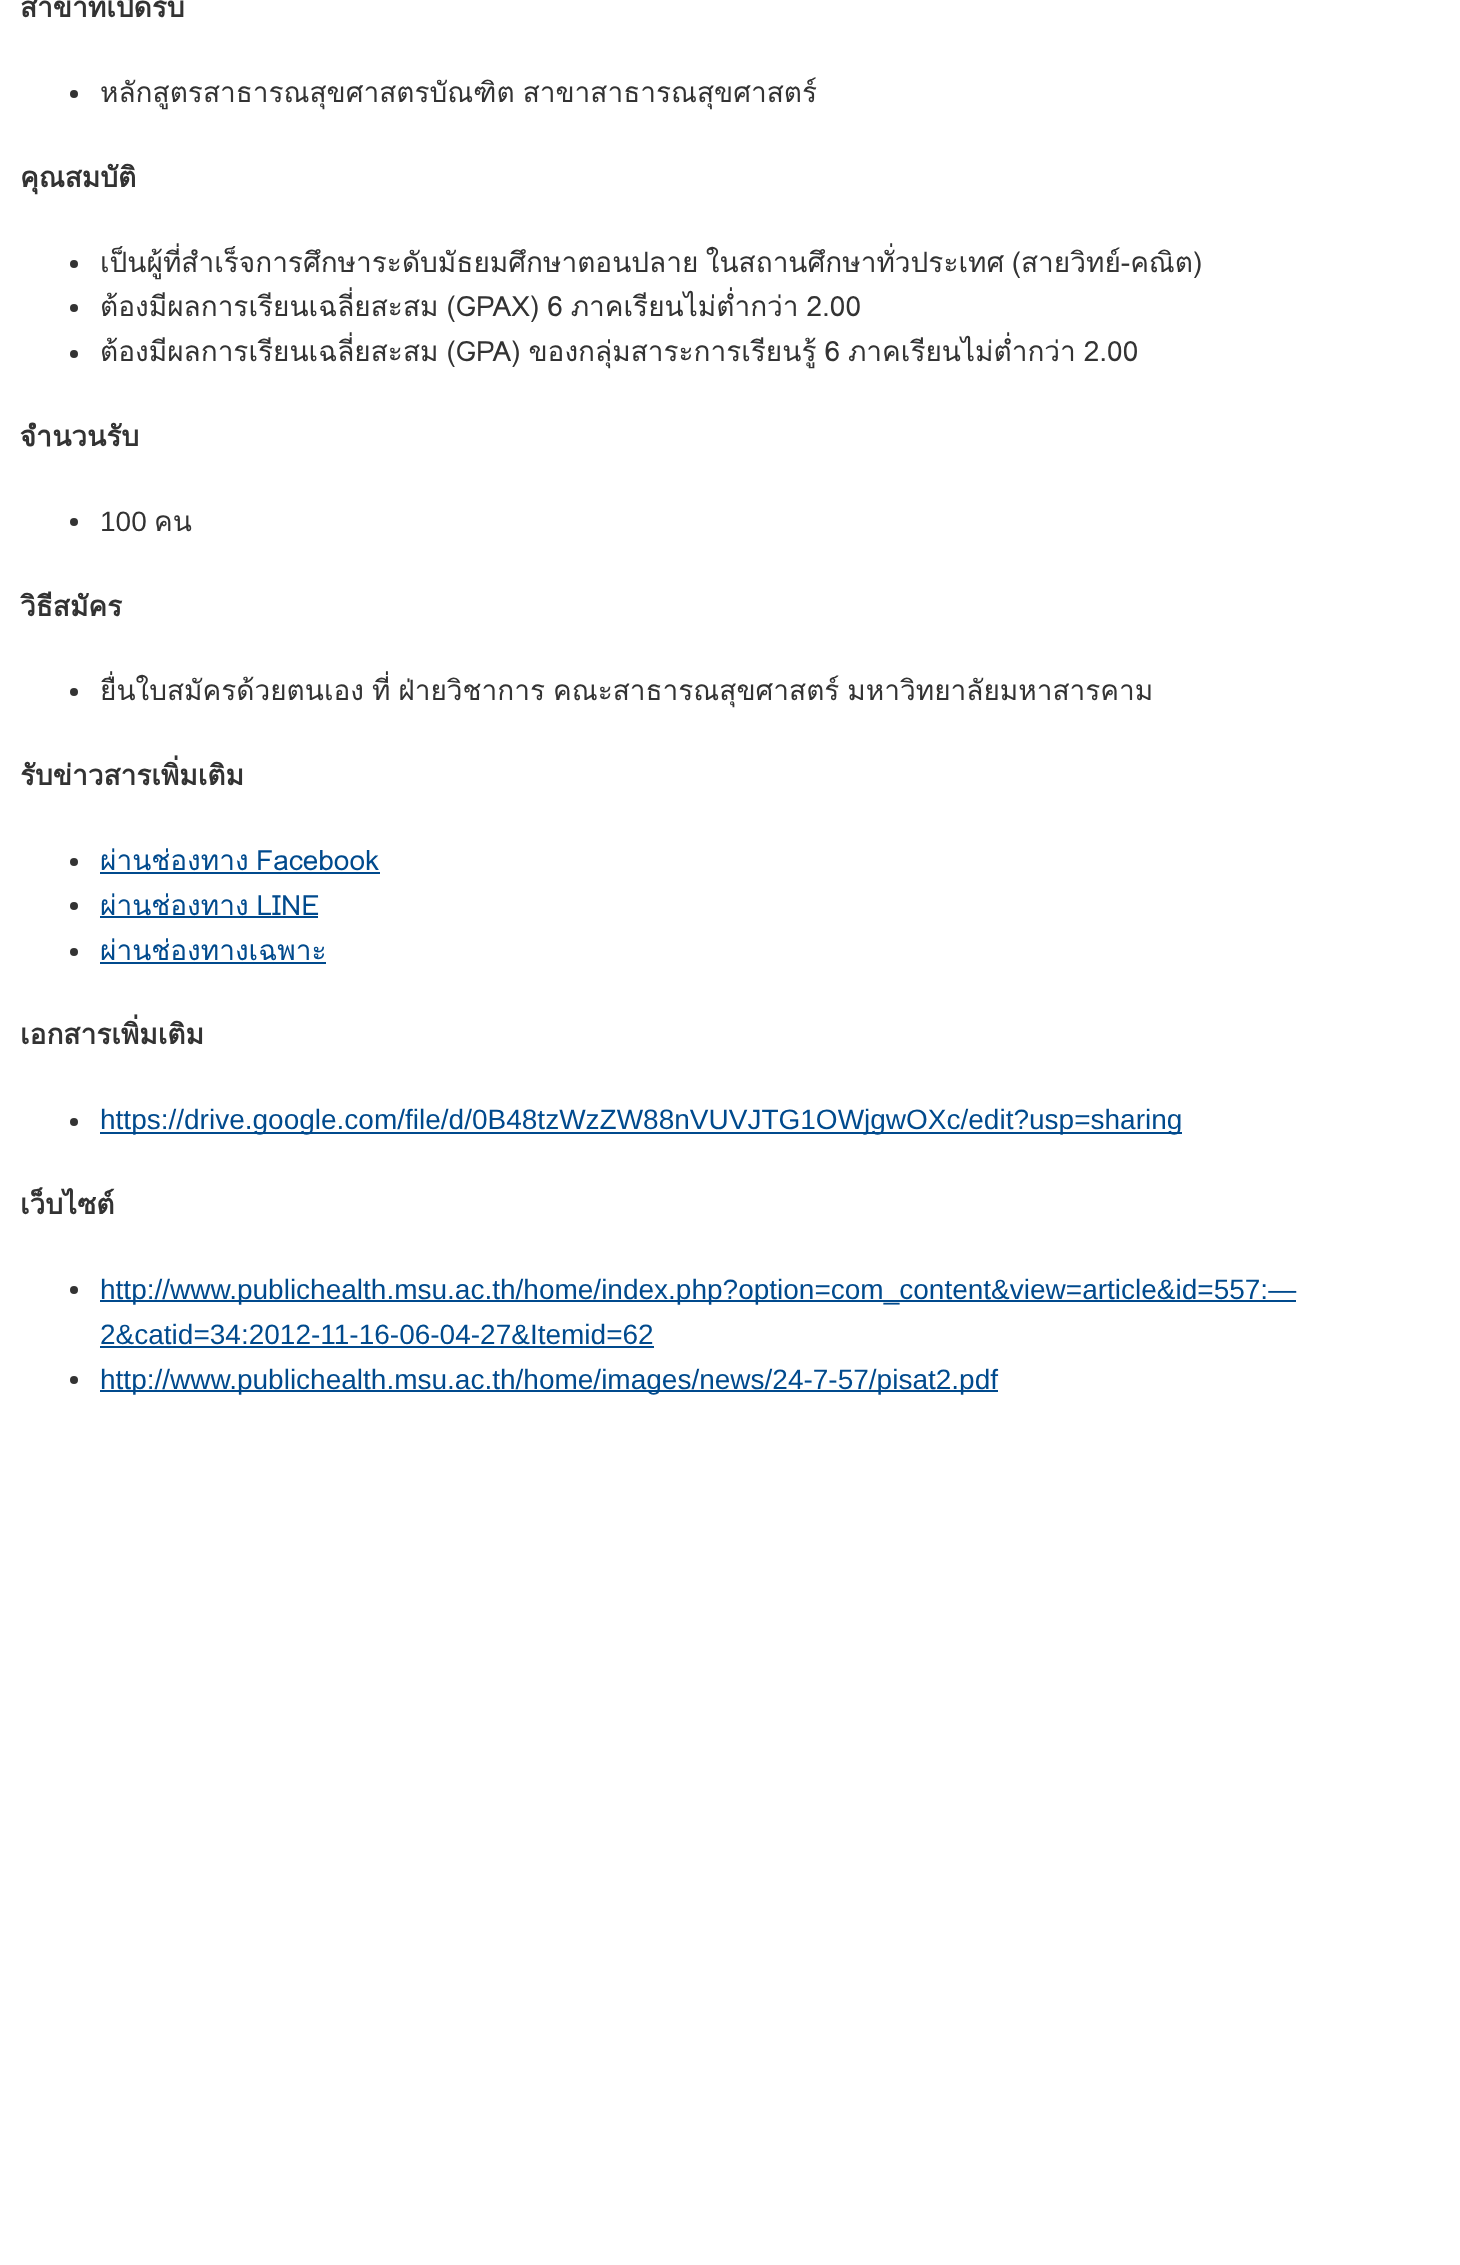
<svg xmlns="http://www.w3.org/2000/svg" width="1460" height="2265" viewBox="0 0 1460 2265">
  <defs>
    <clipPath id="clip1"><rect x="20" y="0" width="1420" height="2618"/></clipPath>
  </defs>
  <rect width="100%" height="100%" fill="#ffffff"/>
  <text x="20" y="17" font-family="Loma" font-size="28" font-weight="bold" fill="#333333">สาขาที่เปิดรับ</text>
  <circle cx="74" cy="94" r="4" fill="#333333"/>
  <text x="100" y="102" word-spacing="-1.5" font-family="Loma" font-size="28" fill="#333333">หลักสูตรสาธารณสุขศาสตรบัณฑิต สาขาสาธารณสุขศาสตร์</text>
  <g clip-path="url(#clip1)">
    <text x="20" y="187" font-family="Loma" font-size="28" font-weight="bold" fill="#333333">คุณสมบัติ</text>
  </g>
  <circle cx="74" cy="264" r="4" fill="#333333"/>
  <text x="100" y="272" word-spacing="-2" font-family="Loma" font-size="28" fill="#333333">เป็นผู้ที่สำเร็จการศึกษาระดับมัธยมศึกษาตอนปลาย ในสถานศึกษาทั่วประเทศ (สายวิทย์-คณิต)</text>
  <circle cx="74" cy="308" r="4" fill="#333333"/>
  <text x="100" y="316" word-spacing="-1.5" font-family="Loma" font-size="28" fill="#333333">ต้องมีผลการเรียนเฉลี่ยสะสม (GPAX) 6 ภาคเรียนไม่ต่ำกว่า 2.00</text>
  <circle cx="74" cy="354" r="4" fill="#333333"/>
  <text x="100" y="361" word-spacing="-1.5" font-family="Loma" font-size="28" fill="#333333">ต้องมีผลการเรียนเฉลี่ยสะสม (GPA) ของกลุ่มสาระการเรียนรู้ 6 ภาคเรียนไม่ต่ำกว่า 2.00</text>
  <g clip-path="url(#clip1)">
    <text x="20" y="446" font-family="Loma" font-size="28" font-weight="bold" fill="#333333">จำนวนรับ</text>
  </g>
  <circle cx="74" cy="522" r="4" fill="#333333"/>
  <text x="100" y="531" font-family="Liberation Sans" font-size="28" fill="#333333">100</text>
  <text x="154" y="531" font-family="Loma" font-size="28" fill="#333333">คน</text>
  <g clip-path="url(#clip1)">
    <text x="20" y="616" font-family="Loma" font-size="28" font-weight="bold" fill="#333333">วิธีสมัคร</text>
  </g>
  <circle cx="74" cy="692" r="4" fill="#333333"/>
  <text x="100" y="700" word-spacing="-1.5" font-family="Loma" font-size="28" fill="#333333">ยื่นใบสมัครด้วยตนเอง ที่ ฝ่ายวิชาการ คณะสาธารณสุขศาสตร์ มหาวิทยาลัยมหาสารคาม</text>
  <g clip-path="url(#clip1)">
    <text x="20" y="785" font-family="Loma" font-size="28" font-weight="bold" fill="#333333">รับข่าวสารเพิ่มเติม</text>
  </g>
  <circle cx="74" cy="862" r="4" fill="#333333"/>
  <text x="100" y="870" word-spacing="-2" font-family="Loma" font-size="28" fill="#004a8d">ผ่านช่องทาง Facebook</text>
  <rect x="100" y="872" width="280" height="2" fill="#004a8d"/>
  <circle cx="74" cy="906" r="4" fill="#333333"/>
  <text x="100" y="915" word-spacing="-1.5" font-family="Loma" font-size="28" fill="#004a8d">ผ่านช่องทาง LINE</text>
  <rect x="100" y="916" width="218" height="2" fill="#004a8d"/>
  <circle cx="74" cy="952" r="4" fill="#333333"/>
  <text x="100" y="960" font-family="Loma" font-size="28" fill="#004a8d">ผ่านช่องทางเฉพาะ</text>
  <rect x="100" y="962" width="226" height="2" fill="#004a8d"/>
  <text x="20" y="1044" font-family="Loma" font-size="28" font-weight="bold" fill="#333333">เอกสารเพิ่มเติม</text>
  <circle cx="74" cy="1122" r="4" fill="#333333"/>
  <rect x="100" y="1132" width="1082" height="2" fill="#004a8d"/>
  <text x="100" y="1129" font-family="Liberation Sans" font-size="28" fill="#004a8d">https://drive.google.com/file/d/0B48tzWzZW88nVUVJTG1OWjgwOXc/edit?usp=sharing</text>
  <g clip-path="url(#clip1)">
    <text x="20" y="1214" font-family="Loma" font-size="28" font-weight="bold" fill="#333333">เว็บไซต์</text>
  </g>
  <circle cx="74" cy="1290" r="4" fill="#333333"/>
  <rect x="100" y="1300" width="1196" height="2" fill="#004a8d"/>
  <text x="100" y="1299" font-family="Liberation Sans" font-size="28" fill="#004a8d">http://www.publichealth.msu.ac.th/home/index.php?option=com_content&amp;view=article&amp;id=557:—</text>
  <text x="100" y="1344" font-family="Liberation Sans" font-size="28" fill="#004a8d">2&amp;catid=34:2012-11-16-06-04-27&amp;Itemid=62</text>
  <rect x="100" y="1346" width="554" height="2" fill="#004a8d"/>
  <circle cx="74" cy="1380" r="4" fill="#333333"/>
  <rect x="100" y="1390" width="898" height="2" fill="#004a8d"/>
  <text x="100" y="1389" font-family="Liberation Sans" font-size="28" fill="#004a8d">http://www.publichealth.msu.ac.th/home/images/news/24-7-57/pisat2.pdf</text>
</svg>
